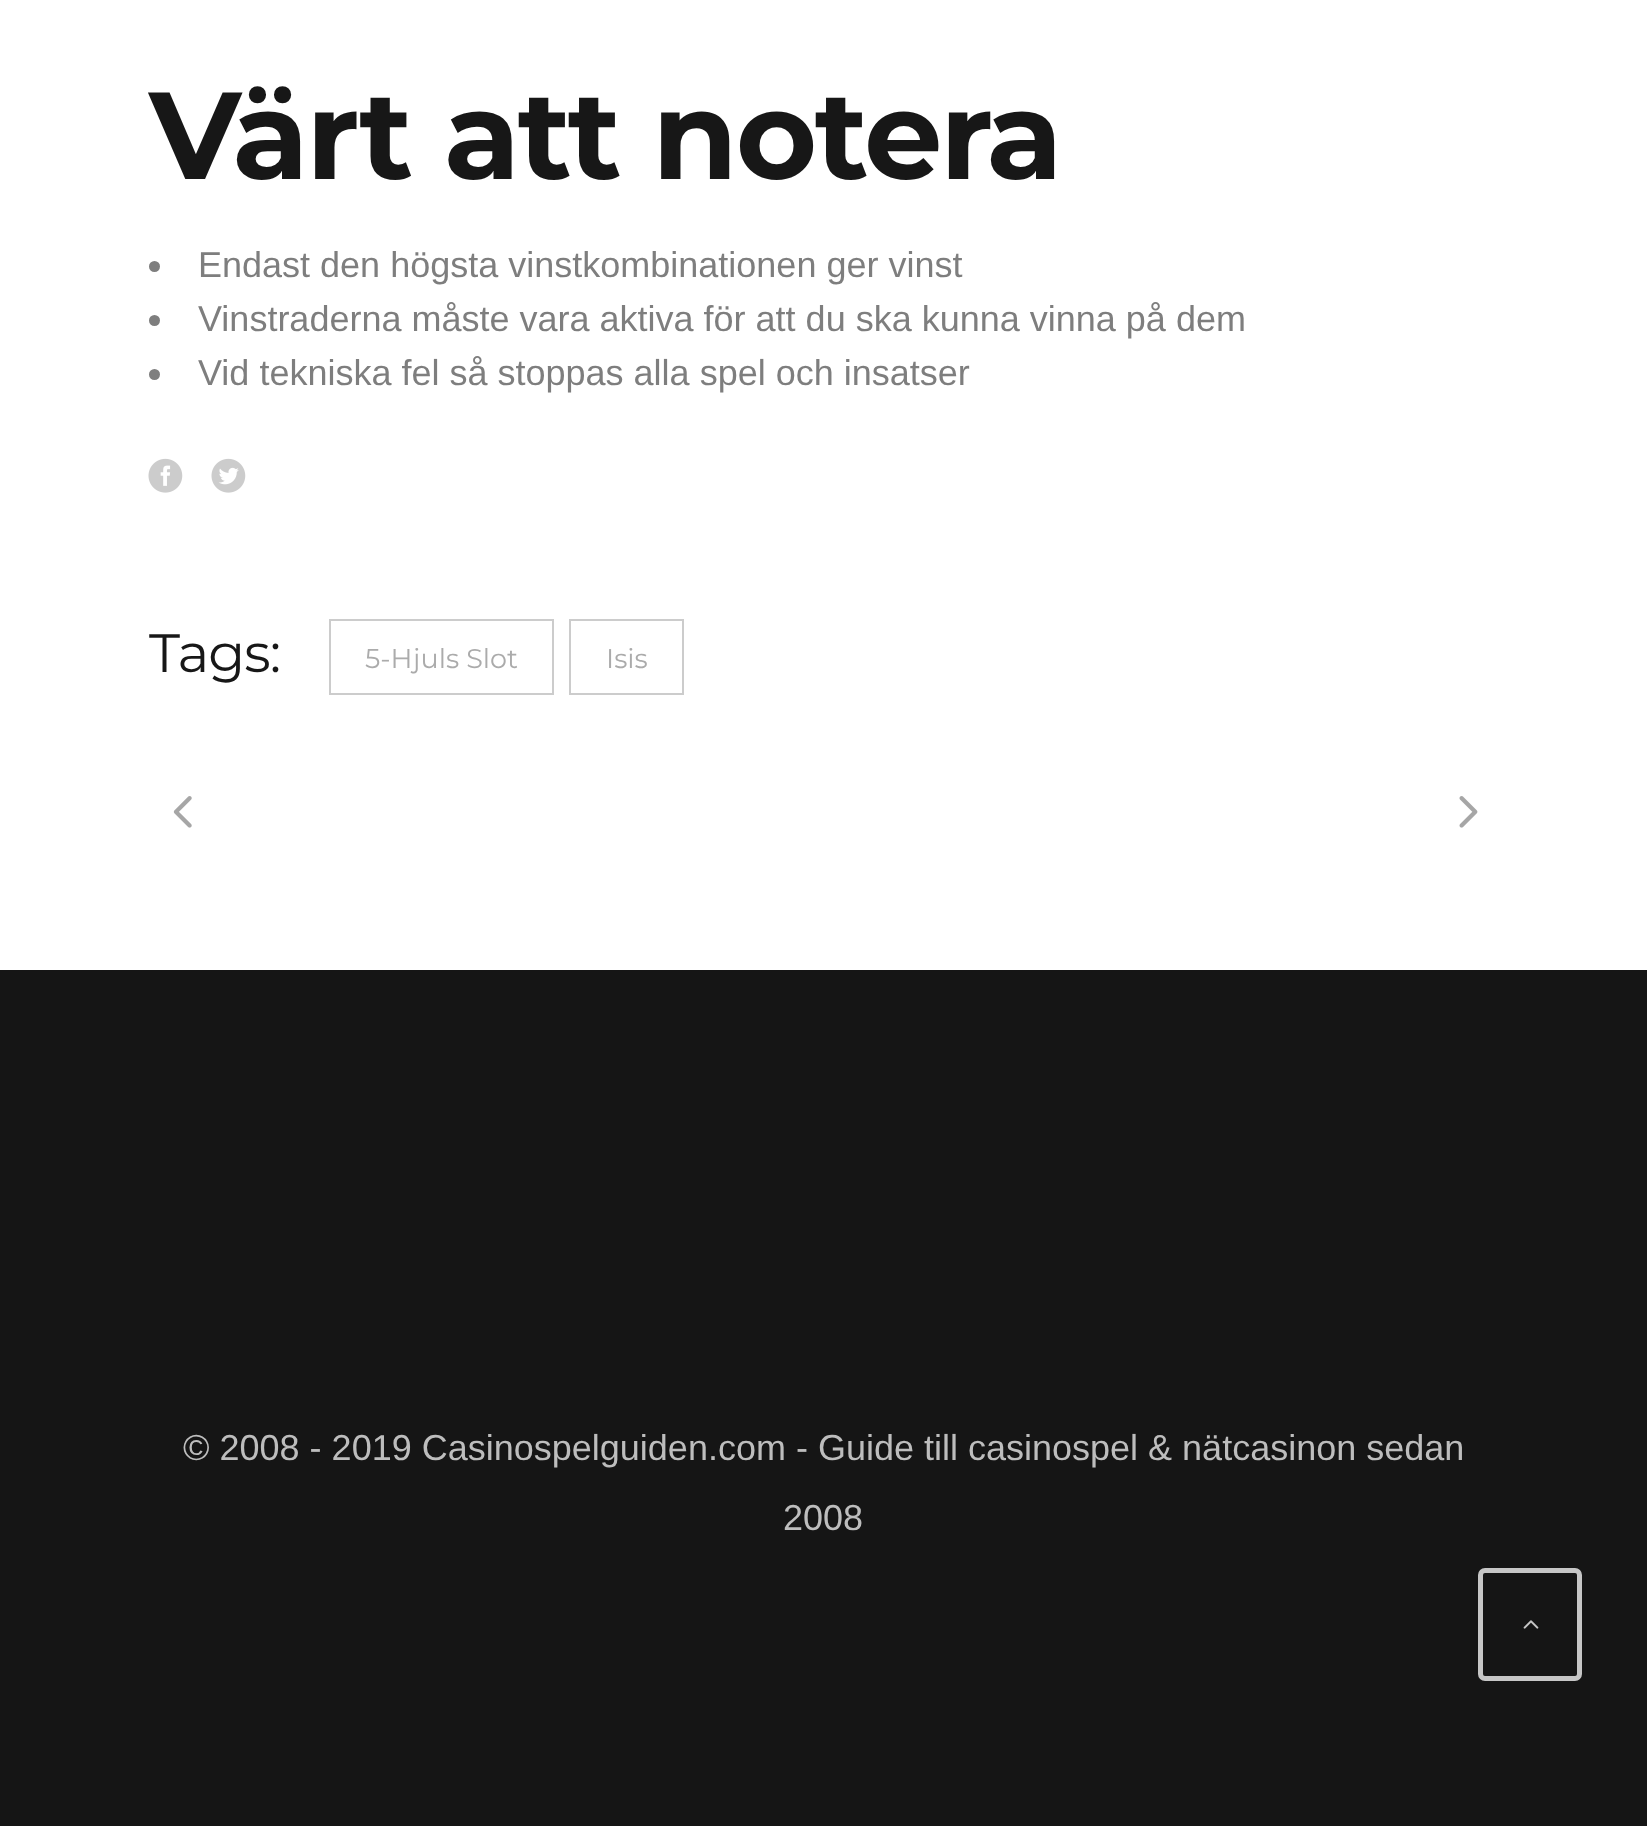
<svg xmlns="http://www.w3.org/2000/svg" width="1647" height="1826" viewBox="0 0 1647 1826">
  <rect width="100%" height="100%" fill="#ffffff"/>
  <text x="149" y="179" font-family="Montserrat" font-size="123.75" font-weight="bold" letter-spacing="-2.25" fill="#171717">Värt att notera</text>
  <circle cx="154.5" cy="266.5" r="5.5" fill="#7e7e7e"/>
  <text x="198" y="277" font-family="Liberation Sans" font-size="36" fill="#7e7e7e">Endast den högsta vinstkombinationen ger vinst</text>
  <circle cx="154.5" cy="320.5" r="5.5" fill="#7e7e7e"/>
  <text x="198" y="331" font-family="Liberation Sans" font-size="36" fill="#7e7e7e">Vinstraderna måste vara aktiva för att du ska kunna vinna på dem</text>
  <circle cx="154.5" cy="374.5" r="5.5" fill="#7e7e7e"/>
  <text x="198" y="385" font-family="Liberation Sans" font-size="36" fill="#7e7e7e">Vid tekniska fel så stoppas alla spel och insatser</text>
  <image x="148" y="458" width="35" height="35" href="img1.png"/>
  <image x="211" y="458" width="35" height="35" href="img2.png"/>
  <text x="149" y="672" font-family="Montserrat" font-size="54" letter-spacing="-1" fill="#171717">Tags:</text>
  <rect x="330" y="620" width="223" height="74" fill="none" stroke="#cccccc" stroke-width="2"/>
  <text x="365" y="668" font-family="Montserrat" font-size="27" fill="#ababab">5-Hjuls Slot</text>
  <rect x="570" y="620" width="113" height="74" fill="none" stroke="#cccccc" stroke-width="2"/>
  <text x="606" y="668" font-family="Montserrat" font-size="27" fill="#ababab">Isis</text>
  <image x="173" y="796" width="19" height="32" href="img3.png"/>
  <image x="1459" y="796" width="19" height="32" href="img4.png"/>
  <rect x="0" y="970" width="1647" height="856" fill="#151515"/>
  <text x="183" y="1460" font-family="Liberation Sans" font-size="36" fill="#bdbdbd">© 2008 - 2019 Casinospelguiden.com - Guide till casinospel &amp; nätcasinon sedan</text>
  <text x="783" y="1530" font-family="Liberation Sans" font-size="36" fill="#bdbdbd">2008</text>
  <rect x="1480.5" y="1570.5" width="99" height="108" rx="4.5" fill="none" stroke="#c6c6c6" stroke-width="5"/>
  <image x="1523" y="1620" width="16" height="9" href="img5.png"/>
</svg>
